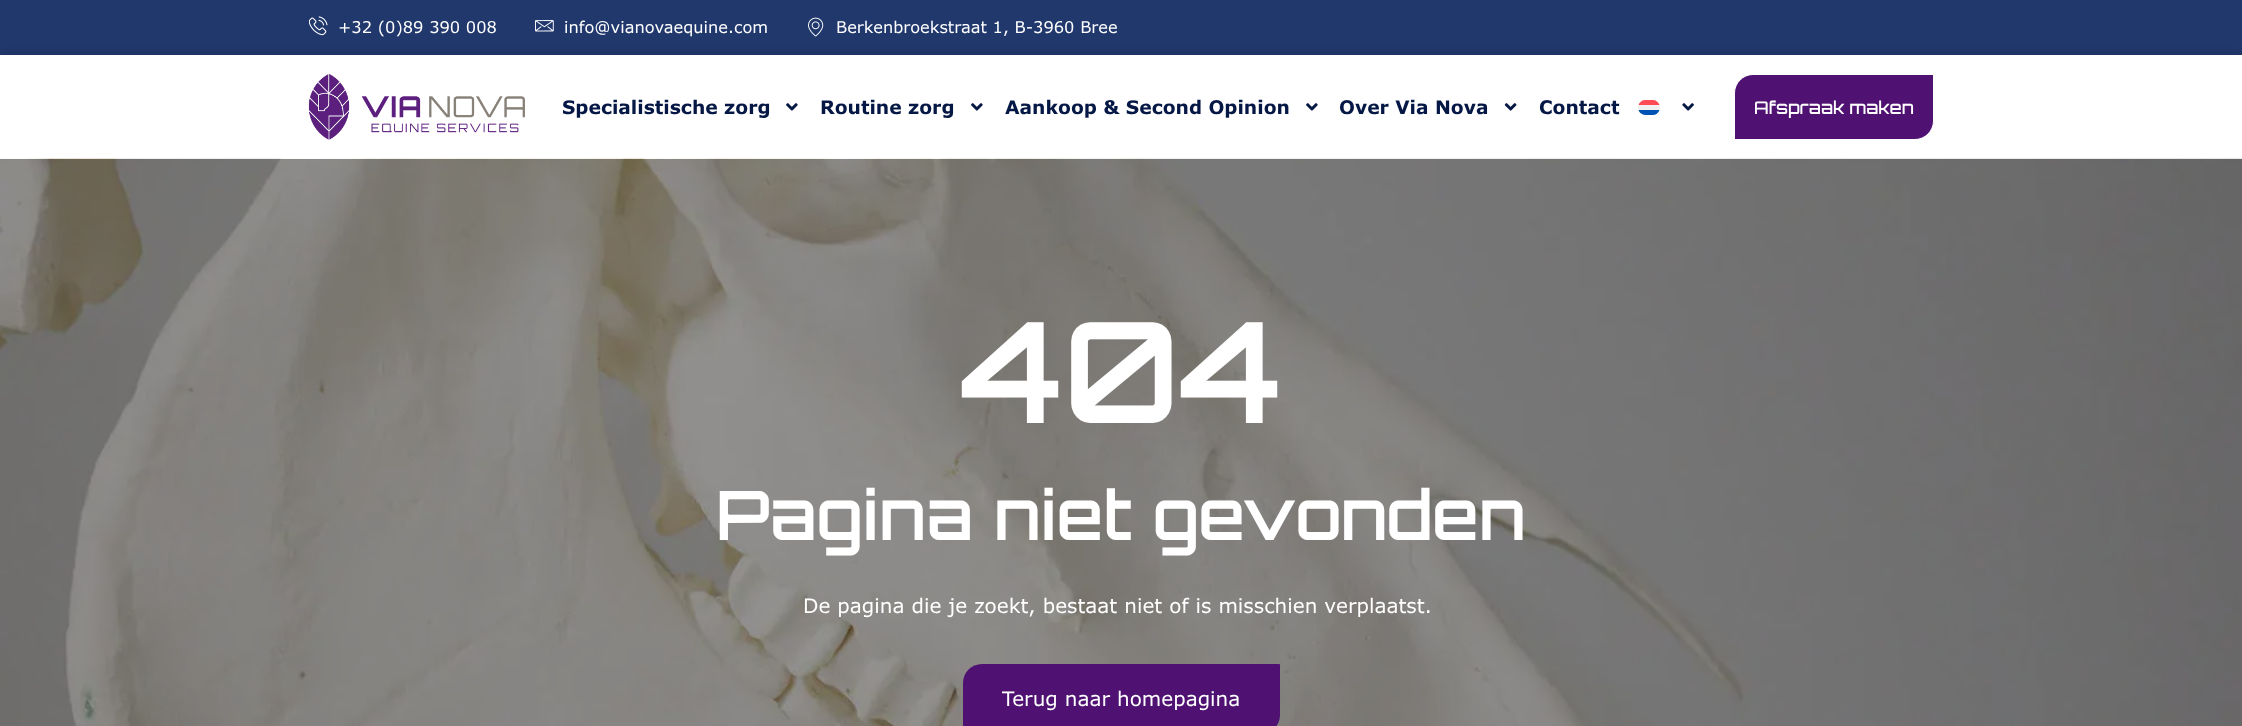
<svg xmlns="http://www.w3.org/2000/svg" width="2242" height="726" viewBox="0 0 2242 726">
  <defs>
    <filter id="blur1" x="-50%" y="-200%" width="200%" height="500%"><feGaussianBlur stdDeviation="6"/></filter>
    <clipPath id="clip1"><rect x="1638" y="100" width="22" height="15"/></clipPath>
  </defs>
  <rect width="100%" height="100%" fill="#21386d"/>
  <image x="309" y="16" width="19" height="20" href="img1.png"/>
  <text x="338" y="33" font-family="Verdana" font-size="16.25" fill="#ffffff">+32 (0)89 390 008</text>
  <image x="535" y="20" width="19" height="12" href="img2.png"/>
  <text x="564" y="33" font-family="Verdana" font-size="16.25" fill="#ffffff">info@vianovaequine.com</text>
  <image x="808" y="17" width="16" height="20" href="img3.png"/>
  <text x="836" y="33" font-family="Verdana" font-size="16.25" fill="#ffffff">Berkenbroekstraat 1, B-3960 Bree</text>
  <rect x="0" y="55" width="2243" height="104" fill="#000000" fill-opacity="0.2" filter="url(#blur1)"/>
  <rect x="0" y="55" width="2242" height="104" fill="#ffffff"/>
  <image x="308" y="74" width="217" height="66" href="img4.png"/>
  <text x="562" y="114" font-family="Verdana" font-size="18.75" font-weight="bold" fill="#051845">Specialistische zorg</text>
  <image x="786" y="103" width="12" height="8" href="img5.png"/>
  <text x="820" y="114" font-family="Verdana" font-size="18.75" font-weight="bold" fill="#051845">Routine zorg</text>
  <image x="971" y="103" width="12" height="8" href="img5.png"/>
  <text x="1005" y="114" font-family="Verdana" font-size="18.75" font-weight="bold" fill="#051845">Aankoop &amp; Second Opinion</text>
  <image x="1306" y="103" width="12" height="8" href="img5.png"/>
  <text x="1339" y="114" font-family="Verdana" font-size="18.75" font-weight="bold" fill="#051845">Over Via Nova</text>
  <image x="1504" y="103" width="13" height="8" href="img6.png"/>
  <text x="1539" y="114" font-family="Verdana" font-size="18.75" font-weight="bold" fill="#051845">Contact</text>
  <g clip-path="url(#clip1)">
    <path d="M1645.5 100C1648.5 100 1652.5 99.5 1655.5 100.5C1663 103.5 1660.5 114.5 1652.5 115C1650 115 1645 115.5 1642.5 114.5C1635 111 1637.5 100 1645.5 100Z" fill="#f0f0f0"/>
  </g>
  <path d="M1652.5 115C1647.5 115 1640.5 116 1638.5 110H1659.5C1658.5 113 1656 115 1652.5 115Z" fill="#0052b4"/>
  <path d="M1645.5 100C1642 100 1639.5 102 1638.5 105H1659.5C1658.5 102 1656 100 1652.5 100Z" fill="#ff4b55"/>
  <image x="1682" y="103" width="12" height="8" href="img7.png"/>
  <path d="M1753 74.5H1933C1933.5 74.5 1933.5 74.5 1933.5 75V121C1933.5 131 1925 139.5 1915 139.5H1735C1734.5 139.5 1734.5 139.5 1734.5 139V93C1734.5 83 1743 74.5 1753 74.5Z" fill="#4f1272" stroke="#ffffff"/>
  <text x="1754" y="114" font-family="Orbitron" font-size="17.5" font-weight="500" fill="#ffffff">Afspraak maken</text>
  <image x="0" y="158" width="2242" height="568" href="img8.png"/>
  <text x="961" y="423" font-family="Orbitron" font-size="140" font-weight="600" fill="#ffffff">404</text>
  <text x="716" y="540" font-family="Orbitron" font-size="68" font-weight="600" fill="#ffffff">Pagina niet gevonden</text>
  <text x="803" y="613" font-family="Verdana" font-size="20" fill="#ffffff">De pagina die je zoekt, bestaat niet of is misschien verplaatst.</text>
  <path d="M982 664H1279C1279.5 664 1280 664.5 1280 665V715C1280 725.5 1271.5 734 1261 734H964C963.5 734 963 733.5 963 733V683C963 672.5 971.5 664 982 664Z" fill="#4f1272"/>
  <text x="1002" y="706" font-family="Verdana" font-size="20" fill="#ffffff">Terug naar homepagina</text>
</svg>
